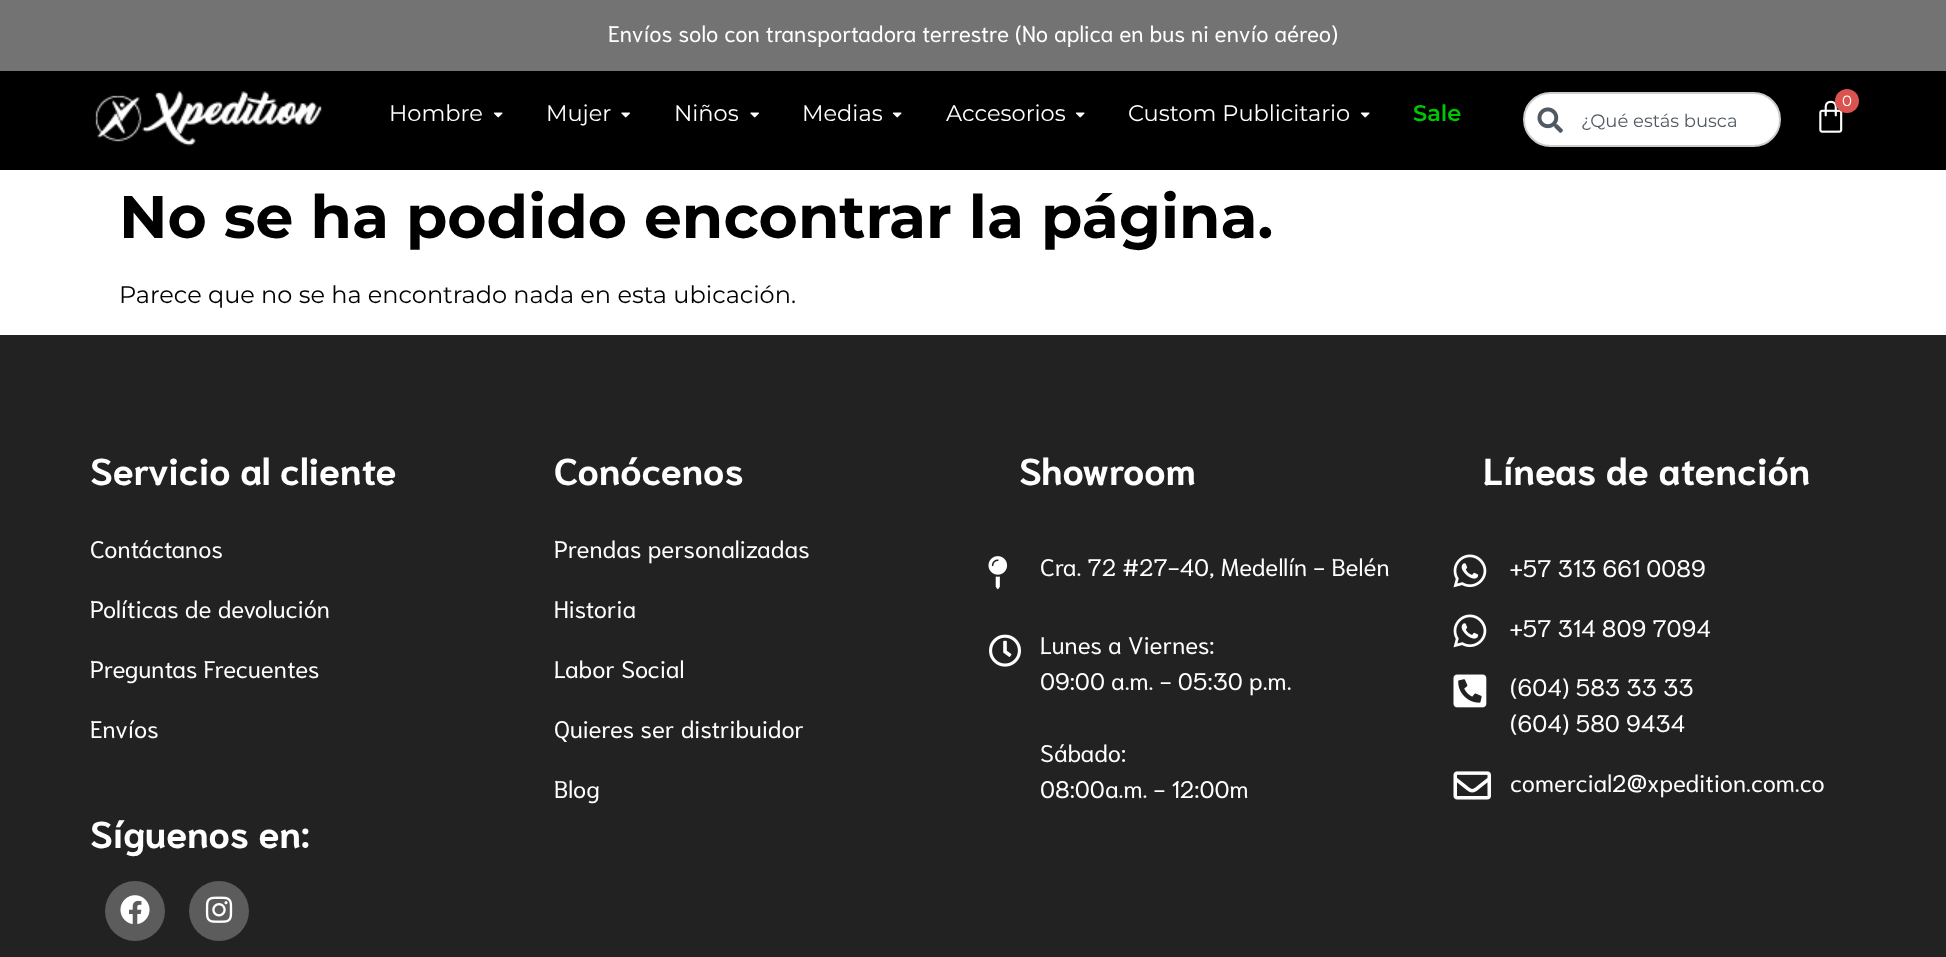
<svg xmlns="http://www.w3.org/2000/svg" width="1946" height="957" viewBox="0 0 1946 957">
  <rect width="100%" height="100%" fill="#ffffff"/>
  <rect x="0" y="0" width="1946" height="71" fill="#737373"/>
  <text x="608" y="42" font-family="Niramit" font-size="22.5" fill="#ffffff">Envíos solo con transportadora terrestre (No aplica en bus ni envío aéreo)</text>
  <rect x="0" y="71" width="1946" height="99" fill="#000000"/>
  <image x="95" y="91" width="227" height="55" href="img1.png"/>
  <text x="389" y="121" font-family="Montserrat" font-size="22.5" fill="#ffffff">Hombre</text>
  <image x="493" y="112" width="10" height="6" href="img2.png"/>
  <text x="546" y="121" font-family="Montserrat" font-size="22.5" fill="#ffffff">Mujer</text>
  <image x="621" y="112" width="9" height="6" href="img3.png"/>
  <text x="674" y="121" font-family="Montserrat" font-size="22.5" fill="#ffffff">Niños</text>
  <image x="750" y="112" width="9" height="6" href="img3.png"/>
  <text x="802" y="121" font-family="Montserrat" font-size="22.5" fill="#ffffff">Medias</text>
  <image x="892" y="112" width="10" height="6" href="img2.png"/>
  <text x="946" y="121" font-family="Montserrat" font-size="22.5" fill="#ffffff">Accesorios</text>
  <image x="1075" y="112" width="10" height="6" href="img2.png"/>
  <text x="1128" y="121" font-family="Montserrat" font-size="22.5" fill="#ffffff">Custom Publicitario</text>
  <image x="1360" y="112" width="10" height="6" href="img2.png"/>
  <text x="1413" y="121" font-family="Montserrat" font-size="22.5" font-weight="600" fill="#00c800">Sale</text>
  <image x="1819" y="100" width="24" height="33" href="img4.png"/>
  <circle cx="1847" cy="101" r="12" fill="#d9534f"/>
  <text x="1842" y="106" font-family="Montserrat" font-size="15" fill="#ffffff">0</text>
  <rect x="1524" y="93" width="256" height="53" rx="26.5" fill="#ffffff" stroke="#cdcdcd" stroke-width="2"/>
  <image x="1537" y="107" width="26" height="26" href="img5.png"/>
  <text x="1581" y="127" font-family="Montserrat" font-size="18" fill="#515962">¿Qué estás busca</text>
  <text x="119" y="238" font-family="Montserrat" font-size="60" font-weight="bold" fill="#000000">No se ha podido encontrar la página.</text>
  <text x="119" y="303" font-family="Montserrat" font-size="24" fill="#000000">Parece que no se ha encontrado nada en esta ubicación.</text>
  <rect x="0" y="335" width="1946" height="622" fill="#222222"/>
  <text x="90" y="485" font-family="Niramit" font-size="37.5" font-weight="bold" fill="#ffffff">Servicio al cliente</text>
  <text x="90" y="558" font-family="Niramit" font-size="24" fill="#ffffff">Contáctanos</text>
  <text x="90" y="618" font-family="Niramit" font-size="24" fill="#ffffff">Políticas de devolución</text>
  <text x="90" y="678" font-family="Niramit" font-size="24" fill="#ffffff">Preguntas Frecuentes</text>
  <text x="90" y="738" font-family="Niramit" font-size="24" fill="#ffffff">Envíos</text>
  <text x="90" y="848" font-family="Niramit" font-size="37.5" font-weight="bold" fill="#ffffff">Síguenos en:</text>
  <circle cx="135" cy="911" r="30" fill="#5c5c5c"/>
  <image x="120" y="895" width="30" height="29" href="img6.png"/>
  <circle cx="219" cy="911" r="30" fill="#5c5c5c"/>
  <image x="205" y="896" width="28" height="27" href="img7.png"/>
  <text x="554" y="485" font-family="Niramit" font-size="37.5" font-weight="bold" fill="#ffffff">Conócenos</text>
  <text x="554" y="558" font-family="Niramit" font-size="24" fill="#ffffff">Prendas personalizadas</text>
  <text x="554" y="618" font-family="Niramit" font-size="24" fill="#ffffff">Historia</text>
  <text x="554" y="678" font-family="Niramit" font-size="24" fill="#ffffff">Labor Social</text>
  <text x="554" y="738" font-family="Niramit" font-size="24" fill="#ffffff">Quieres ser distribuidor</text>
  <text x="554" y="798" font-family="Niramit" font-size="24" fill="#ffffff">Blog</text>
  <text x="1019" y="485" font-family="Niramit" font-size="37.5" font-weight="bold" fill="#ffffff">Showroom</text>
  <image x="988" y="556" width="20" height="34" href="img8.png"/>
  <text x="1040" y="576" font-family="Niramit" font-size="24" fill="#ffffff">Cra. 72 #27-40, Medellín - Belén</text>
  <image x="989" y="634" width="32" height="33" href="img9.png"/>
  <text x="1040" y="654" font-family="Niramit" font-size="24" fill="#ffffff">Lunes a Viernes:</text>
  <text x="1040" y="690" font-family="Niramit" font-size="24" fill="#ffffff">09:00 a.m. - 05:30 p.m.</text>
  <text x="1040" y="762" font-family="Niramit" font-size="24" fill="#ffffff">Sábado:</text>
  <text x="1040" y="798" font-family="Niramit" font-size="24" fill="#ffffff">08:00a.m. - 12:00m</text>
  <text x="1483" y="485" font-family="Niramit" font-size="37.5" font-weight="bold" fill="#ffffff">Líneas de atención</text>
  <image x="1453" y="554" width="34" height="34" href="img10.png"/>
  <text x="1510" y="577" font-family="Niramit" font-size="24" fill="#ffffff">+57 313 661 0089</text>
  <image x="1453" y="614" width="34" height="34" href="img10.png"/>
  <text x="1510" y="637" font-family="Niramit" font-size="24" fill="#ffffff">+57 314 809 7094</text>
  <image x="1453" y="674" width="34" height="34" href="img11.png"/>
  <text x="1510" y="696" font-family="Niramit" font-size="24" fill="#ffffff">(604) 583 33 33</text>
  <text x="1510" y="732" font-family="Niramit" font-size="24" fill="#ffffff">(604) 580 9434</text>
  <image x="1453" y="771" width="38" height="29" href="img12.png"/>
  <text x="1510" y="792" font-family="Niramit" font-size="24" fill="#ffffff">comercial2@xpedition.com.co</text>
</svg>
